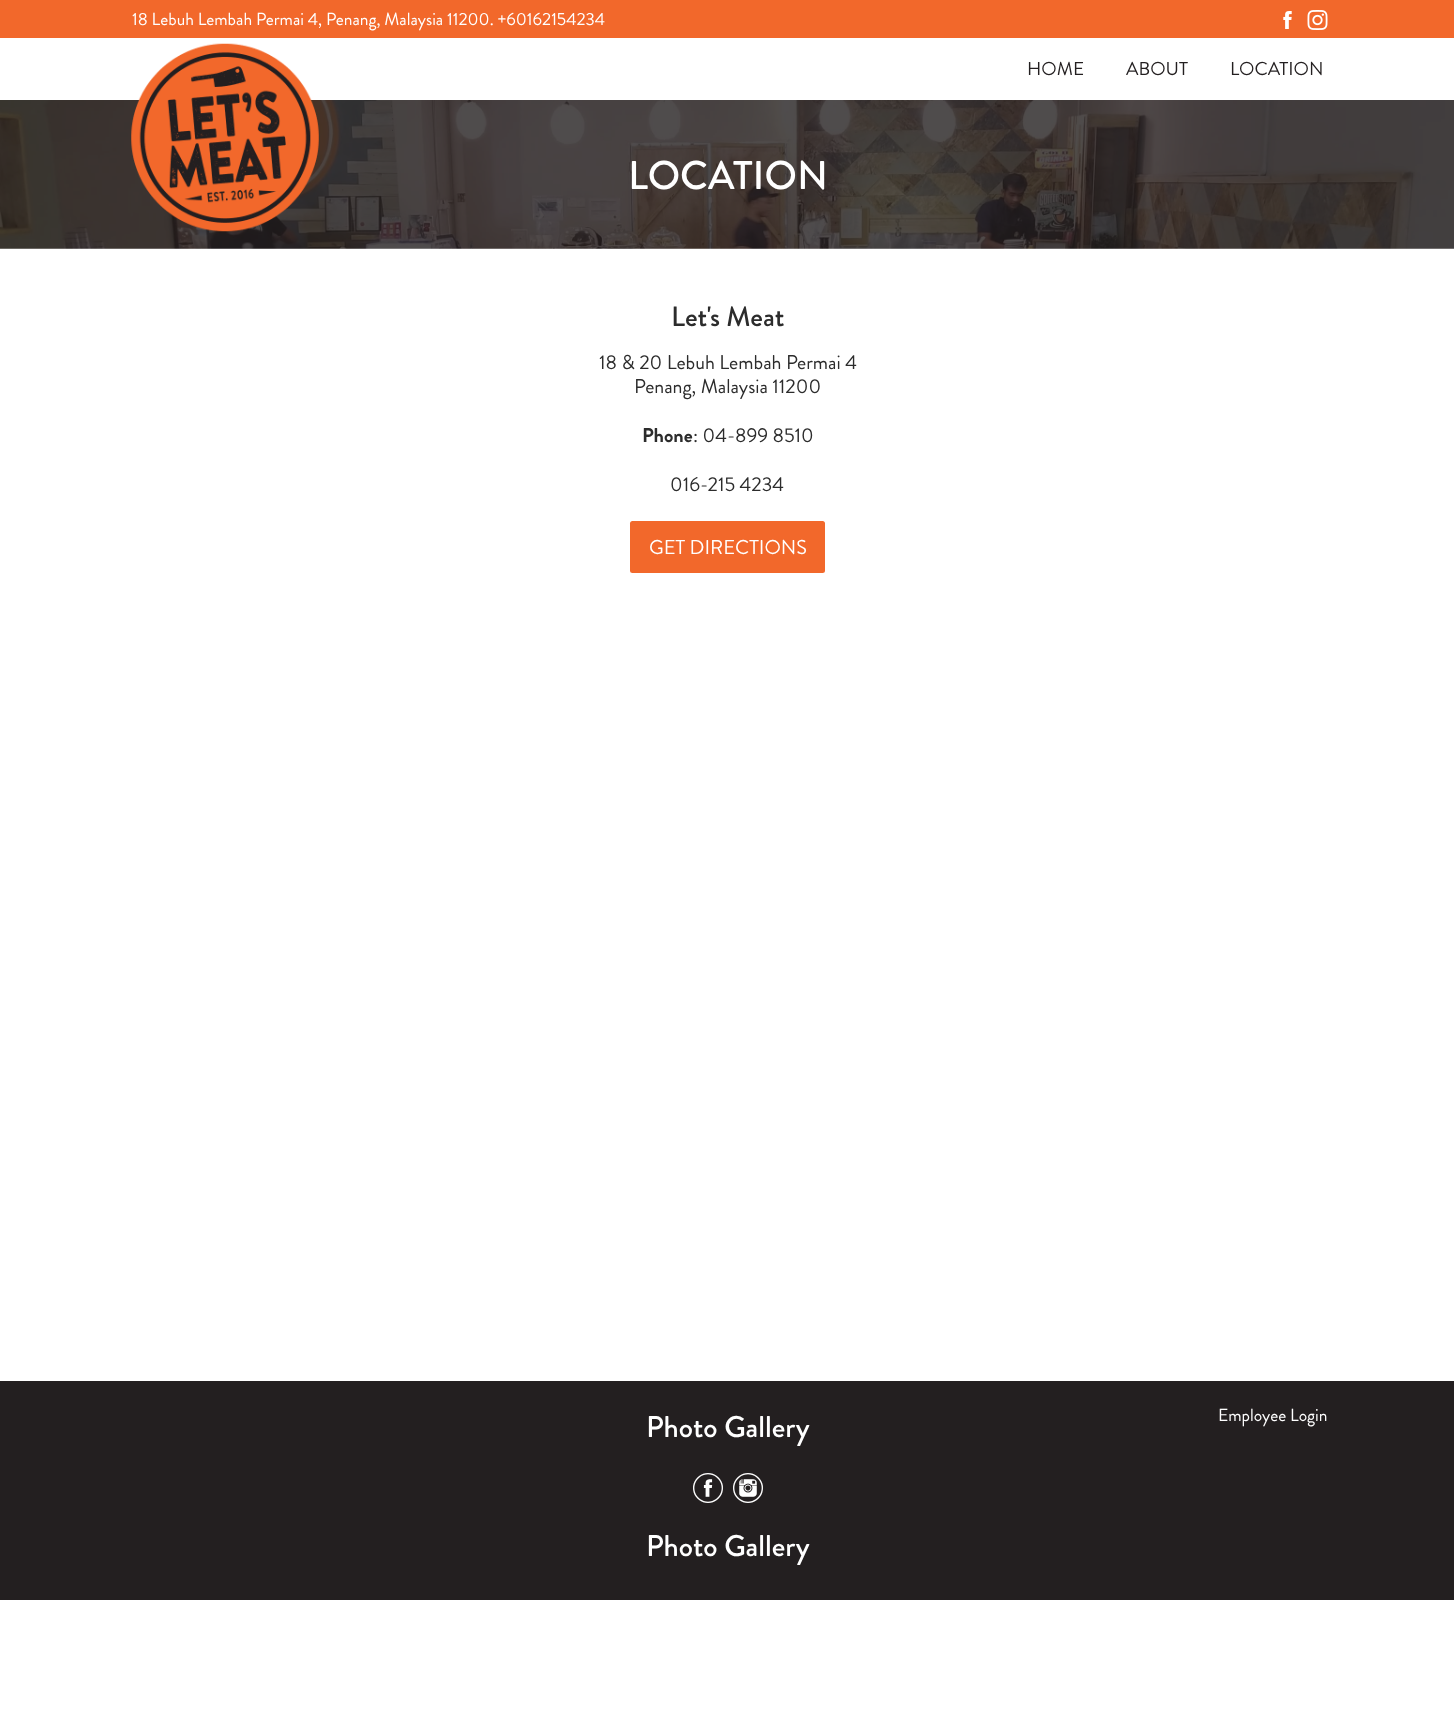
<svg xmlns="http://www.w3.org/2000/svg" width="1454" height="1711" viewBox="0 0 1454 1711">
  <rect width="100%" height="100%" fill="#ffffff"/>
  <rect x="0" y="0" width="1454" height="38" fill="#f2682b"/>
  <text x="132" y="25" font-family="Brandon Grotesque" font-size="17.5" fill="#ffffff">18 Lebuh Lembah Permai 4, Penang, Malaysia 11200. +60162154234</text>
  <image x="1283" y="11" width="9" height="18" href="img1.png"/>
  <image x="1307" y="10" width="21" height="20" href="img2.png"/>
  <image x="0" y="100" width="1454" height="149" href="img4.png"/>
  <image x="131" y="43" width="188" height="189" href="img3.png"/>
  <text x="1027" y="75" font-family="Brandon Grotesque" font-size="18.75" fill="#231f20">HOME</text>
  <text x="1126" y="75" font-family="Brandon Grotesque" font-size="18.75" fill="#231f20">ABOUT</text>
  <text x="1230" y="75" font-family="Brandon Grotesque" font-size="18.75" fill="#231f20">LOCATION</text>
  <text x="628" y="189" font-family="Brandon Grotesque" font-size="40" font-weight="500" fill="#ffffff">LOCATION</text>
  <text x="671" y="326" font-family="Brandon Grotesque" font-size="28" font-weight="500" fill="#2c2c2c">Let's Meat</text>
  <text x="599" y="369" font-family="Brandon Grotesque" font-size="20" fill="#2c2c2c">18 &amp; 20 Lebuh Lembah Permai 4</text>
  <text x="634" y="393" font-family="Brandon Grotesque" font-size="20" fill="#2c2c2c">Penang, Malaysia 11200</text>
  <text x="642" y="442" font-family="Brandon Grotesque" font-size="20" font-weight="bold" fill="#2c2c2c">Phone</text>
  <text x="693" y="442" font-family="Brandon Grotesque" font-size="20" fill="#2c2c2c">: 04-899 8510</text>
  <text x="670" y="491" font-family="Brandon Grotesque" font-size="20" fill="#2c2c2c">016-215 4234</text>
  <rect x="630" y="521" width="195" height="52" rx="2.5" fill="#f2682b"/>
  <text x="649" y="554" font-family="Brandon Grotesque" font-size="20" fill="#ffffff">GET DIRECTIONS</text>
  <rect x="0" y="1381" width="1454" height="219" fill="#231f20"/>
  <text x="646" y="1437" font-family="Brandon Grotesque" font-size="30" font-weight="500" fill="#ffffff">Photo Gallery</text>
  <text x="693" y="1503" font-family="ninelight" font-size="30" font-weight="300" fill="#ffffff">*</text>
  <text x="733" y="1503" font-family="ninelight" font-size="30" font-weight="300" fill="#ffffff">'</text>
  <text x="646" y="1556" font-family="Brandon Grotesque" font-size="30" font-weight="500" fill="#ffffff">Photo Gallery</text>
  <text x="1218" y="1421" font-family="Brandon Grotesque" font-size="17.5" fill="#ffffff">Employee Login</text>
</svg>
